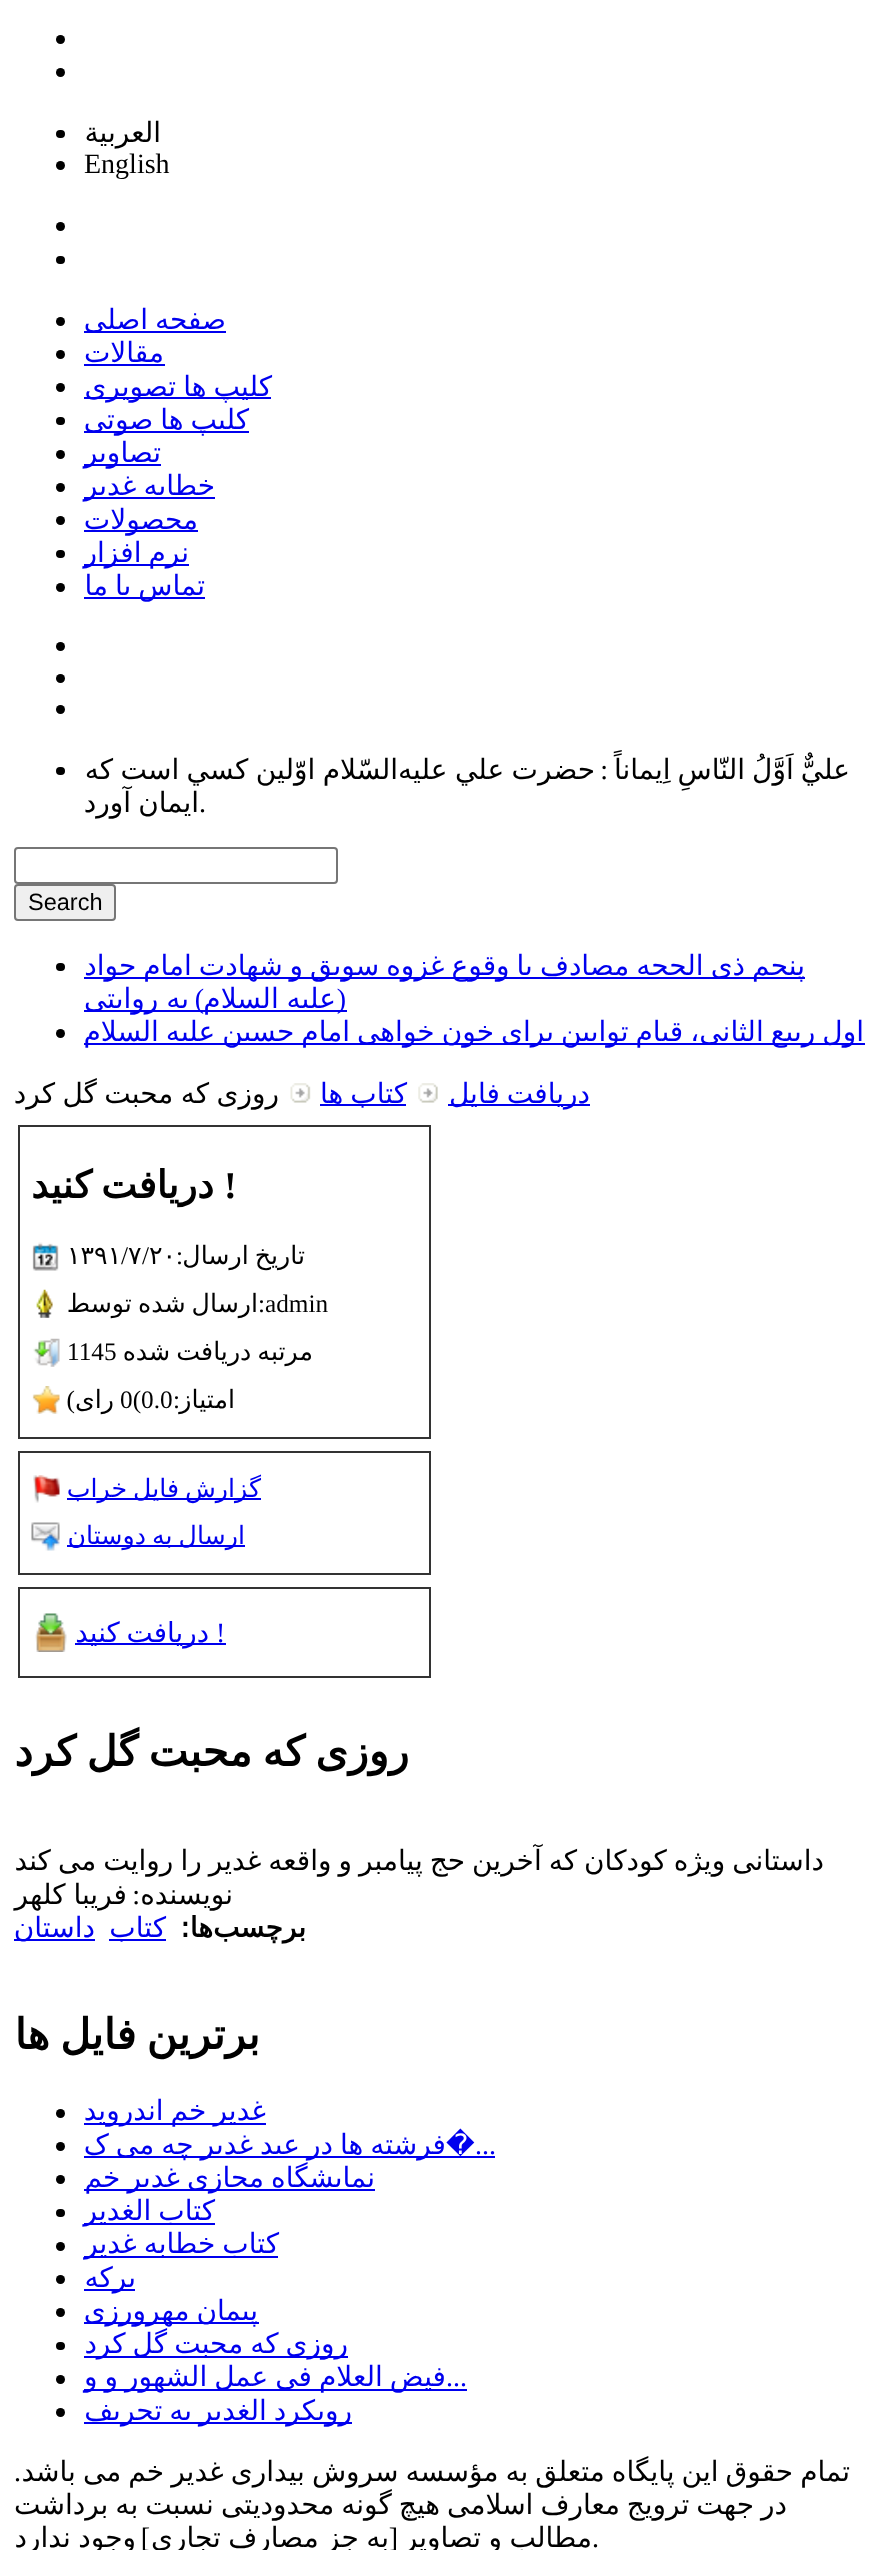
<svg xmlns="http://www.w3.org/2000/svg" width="877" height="2550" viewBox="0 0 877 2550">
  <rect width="100%" height="100%" fill="#ffffff"/>
  <circle cx="60.5" cy="39.5" r="4.5" fill="#000000"/>
  <circle cx="60.5" cy="72.5" r="4.5" fill="#000000"/>
  <text x="161" y="142" font-family="DejaVu Sans" font-size="28" direction="rtl" fill="#000000">العربية</text>
  <rect x="56" y="130" width="9" height="8" rx="4" fill="#000000"/>
  <text x="84" y="173" font-family="Liberation Serif" font-size="28" fill="#000000">English</text>
  <circle cx="60.5" cy="165.5" r="4.5" fill="#000000"/>
  <circle cx="60.5" cy="226.5" r="4.5" fill="#000000"/>
  <rect x="56" y="256" width="9" height="8" rx="4" fill="#000000"/>
  <rect x="84" y="331" width="142" height="2" fill="#0000ee"/>
  <text x="226" y="329" word-spacing="-1.9" font-family="DejaVu Sans" font-size="28" direction="rtl" fill="#0000ee">صفحه اصلی</text>
  <circle cx="60.5" cy="321.5" r="4.5" fill="#000000"/>
  <text x="164" y="362" font-family="DejaVu Sans" font-size="28" direction="rtl" fill="#0000ee">مقالات</text>
  <rect x="84" y="364" width="81" height="2" fill="#0000ee"/>
  <circle cx="60.5" cy="354.5" r="4.5" fill="#000000"/>
  <rect x="84" y="397" width="187" height="2" fill="#0000ee"/>
  <text x="272" y="396" word-spacing="-1.9" font-family="DejaVu Sans" font-size="28" direction="rtl" fill="#0000ee">کلیپ ها تصویری</text>
  <circle cx="60.5" cy="387.5" r="4.5" fill="#000000"/>
  <rect x="84" y="431" width="165" height="2" fill="#0000ee"/>
  <text x="249" y="429" word-spacing="-1.9" font-family="DejaVu Sans" font-size="28" direction="rtl" fill="#0000ee">کلیپ ها صوتی</text>
  <rect x="56" y="417" width="9" height="8" rx="4" fill="#000000"/>
  <rect x="84" y="464" width="77" height="2" fill="#0000ee"/>
  <text x="161" y="462" font-family="DejaVu Sans" font-size="28" direction="rtl" fill="#0000ee">تصاویر</text>
  <circle cx="60.5" cy="454.5" r="4.5" fill="#000000"/>
  <rect x="84" y="497" width="131" height="2" fill="#0000ee"/>
  <text x="215" y="495" word-spacing="-1.9" font-family="DejaVu Sans" font-size="28" direction="rtl" fill="#0000ee">خطابه غدیر</text>
  <circle cx="60.5" cy="487.5" r="4.5" fill="#000000"/>
  <rect x="84" y="530" width="114" height="2" fill="#0000ee"/>
  <text x="198" y="529" font-family="DejaVu Sans" font-size="28" direction="rtl" fill="#0000ee">محصولات</text>
  <circle cx="60.5" cy="520.5" r="4.5" fill="#000000"/>
  <rect x="84" y="564" width="105" height="2" fill="#0000ee"/>
  <text x="189" y="562" word-spacing="-1.9" font-family="DejaVu Sans" font-size="28" direction="rtl" fill="#0000ee">نرم افزار</text>
  <rect x="56" y="550" width="9" height="8" rx="4" fill="#000000"/>
  <rect x="84" y="597" width="121" height="2" fill="#0000ee"/>
  <text x="205" y="595" word-spacing="-1.9" font-family="DejaVu Sans" font-size="28" direction="rtl" fill="#0000ee">تماس با ما</text>
  <circle cx="60.5" cy="587.5" r="4.5" fill="#000000"/>
  <circle cx="60.5" cy="646.5" r="4.5" fill="#000000"/>
  <circle cx="60.5" cy="678.5" r="4.5" fill="#000000"/>
  <circle cx="60.5" cy="709.5" r="4.5" fill="#000000"/>
  <text x="850" y="779" word-spacing="-1.9" font-family="DejaVu Sans" font-size="28" direction="rtl" fill="#000000">عليٌّ اَوَّلُ النّاسِ اِيماناً</text>
  <text x="608" y="779" font-family="Liberation Serif" font-size="28" direction="rtl" fill="#000000">:</text>
  <text x="398" y="779" word-spacing="-1.5" font-family="DejaVu Sans" font-size="28" direction="rtl" fill="#000000">السّلام اوّلين كسي است كه</text>
  <text x="595" y="779" word-spacing="-1.5" font-family="DejaVu Sans" font-size="28" direction="rtl" fill="#000000">حضرت علي عليه</text>
  <rect x="56" y="767" width="9" height="8" rx="4" fill="#000000"/>
  <text x="199" y="812" font-family="Liberation Serif" font-size="28" fill="#000000">.</text>
  <text x="199" y="812" word-spacing="-1.9" font-family="DejaVu Sans" font-size="28" direction="rtl" fill="#000000">ايمان آورد</text>
  <rect x="15" y="848" width="322" height="35" rx="3" fill="none" stroke="#767676" stroke-width="2"/>
  <rect x="15" y="885" width="100" height="35" rx="3" fill="#efefef" stroke="#767676" stroke-width="2"/>
  <text x="28" y="910" font-family="Liberation Sans" font-size="23.5" fill="#000000">Search</text>
  <rect x="84" y="977" width="721" height="2" fill="#0000ee"/>
  <text x="805" y="975" word-spacing="-1.9" font-family="DejaVu Sans" font-size="28" direction="rtl" fill="#0000ee">پنجم ذی الحجه مصادف با وقوع غزوه سویق و شهادت امام جواد</text>
  <rect x="56" y="963" width="9" height="8" rx="4" fill="#000000"/>
  <rect x="84" y="1010" width="263" height="2" fill="#0000ee"/>
  <text x="346" y="1008" font-family="Liberation Serif" font-size="28" direction="rtl" fill="#0000ee">(</text>
  <text x="336" y="1008" word-spacing="-1" font-family="DejaVu Sans" font-size="28" direction="rtl" fill="#0000ee">علیه السلام</text>
  <text x="204" y="1008" font-family="Liberation Serif" font-size="28" direction="rtl" fill="#0000ee">)</text>
  <text x="189" y="1008" word-spacing="-1" font-family="DejaVu Sans" font-size="28" direction="rtl" fill="#0000ee">به روایتی</text>
  <rect x="84" y="1043" width="781" height="2" fill="#0000ee"/>
  <text x="864" y="1041" word-spacing="-1.9" font-family="DejaVu Sans" font-size="28" direction="rtl" fill="#0000ee">اول ربیع الثانی، قیام توابین برای خون خواهی امام حسین علیه السلام</text>
  <circle cx="60.5" cy="1033.5" r="4.5" fill="#000000"/>
  <rect x="448" y="1104" width="142" height="2" fill="#0000ee"/>
  <text x="590" y="1103" word-spacing="-1.9" font-family="DejaVu Sans" font-size="28" direction="rtl" fill="#0000ee">دریافت فایل</text>
  <image x="418" y="1083" width="20" height="20" href="img1.png"/>
  <rect x="320" y="1104" width="86" height="2" fill="#0000ee"/>
  <text x="407" y="1103" word-spacing="-1.9" font-family="DejaVu Sans" font-size="28" direction="rtl" fill="#0000ee">کتاب ها</text>
  <image x="290" y="1083" width="21" height="20" href="img2.png"/>
  <text x="279" y="1103" word-spacing="-1.5" font-family="DejaVu Sans" font-size="28" direction="rtl" fill="#000000">روزی که محبت گل کرد</text>
  <rect x="19" y="1126" width="411" height="312" fill="none" stroke="#333333" stroke-width="2"/>
  <text x="224" y="1198" font-family="Liberation Serif" font-size="38" font-weight="bold" fill="#000000">!</text>
  <text x="214" y="1198" word-spacing="-3" font-family="DejaVu Sans" font-size="38" font-weight="bold" direction="rtl" fill="#000000">دریافت کنید</text>
  <image x="32" y="1242" width="27" height="29" href="img3.png"/>
  <text x="305" y="1264" word-spacing="-2" font-family="DejaVu Sans" font-size="25.25" direction="rtl" fill="#000000">تاریخ ارسال</text>
  <text x="183" y="1264" font-family="Liberation Serif" font-size="25.25" direction="rtl" fill="#000000">:</text>
  <text x="149" y="1264" font-family="DejaVu Sans" font-size="25.25" fill="#000000">۲۰</text>
  <text x="142" y="1264" font-family="Liberation Serif" font-size="25.25" fill="#000000">/</text>
  <text x="128" y="1264" font-family="DejaVu Sans" font-size="25.25" fill="#000000">۷</text>
  <text x="121" y="1264" font-family="Liberation Serif" font-size="25.25" fill="#000000">/</text>
  <text x="67" y="1264" font-family="DejaVu Sans" font-size="25.25" fill="#000000">۱۳۹۱</text>
  <image x="36" y="1289" width="17" height="29" href="img4.png"/>
  <text x="258" y="1312" font-family="Liberation Serif" font-size="25.25" fill="#000000">:admin</text>
  <text x="258" y="1312" word-spacing="-2" font-family="DejaVu Sans" font-size="25.25" direction="rtl" fill="#000000">ارسال شده توسط</text>
  <image x="33" y="1338" width="27" height="29" href="img5.png"/>
  <text x="313" y="1360" word-spacing="-2" font-family="DejaVu Sans" font-size="25.25" direction="rtl" fill="#000000">مرتبه دریافت شده</text>
  <text x="67" y="1360" font-family="Liberation Serif" font-size="25.25" fill="#000000">1145</text>
  <image x="32" y="1386" width="28" height="28" href="img6.png"/>
  <text x="235" y="1408" font-family="DejaVu Sans" font-size="25.25" direction="rtl" fill="#000000">امتیاز</text>
  <text x="180" y="1408" font-family="Liberation Serif" font-size="25.25" direction="rtl" fill="#000000">:</text>
  <text x="120" y="1408" font-family="Liberation Serif" font-size="25.25" fill="#000000">0(0.0</text>
  <text x="114" y="1408" font-family="DejaVu Sans" font-size="25.25" direction="rtl" fill="#000000">رای</text>
  <text x="75" y="1408" font-family="Liberation Serif" font-size="25.25" direction="rtl" fill="#000000">)</text>
  <rect x="19" y="1452" width="411" height="122" fill="none" stroke="#333333" stroke-width="2"/>
  <image x="33" y="1475" width="27" height="28" href="img7.png"/>
  <rect x="67" y="1498" width="194" height="2" fill="#0000ee"/>
  <text x="261" y="1497" word-spacing="-2" font-family="DejaVu Sans" font-size="25.25" direction="rtl" fill="#0000ee">گزارش فایل خراب</text>
  <image x="31" y="1522" width="29" height="29" href="img8.png"/>
  <rect x="67" y="1545" width="178" height="2" fill="#0000ee"/>
  <text x="245" y="1544" word-spacing="-2" font-family="DejaVu Sans" font-size="25.25" direction="rtl" fill="#0000ee">ارسال به دوستان</text>
  <rect x="19" y="1588" width="411" height="89" fill="none" stroke="#333333" stroke-width="2"/>
  <image x="35" y="1613" width="32" height="39" href="img9.png"/>
  <text x="216" y="1642" font-family="Liberation Serif" font-size="27.75" fill="#0000ee">!</text>
  <rect x="75" y="1643" width="151" height="2" fill="#0000ee"/>
  <text x="209" y="1642" word-spacing="-2" font-family="DejaVu Sans" font-size="27.75" direction="rtl" fill="#0000ee">دریافت کنید</text>
  <text x="409" y="1766" word-spacing="-3" font-family="DejaVu Sans" font-size="42" font-weight="bold" direction="rtl" fill="#000000">روزی که محبت گل کرد</text>
  <text x="824" y="1870" word-spacing="-1.9" font-family="DejaVu Sans" font-size="28" direction="rtl" fill="#000000">داستانی ویژه کودکان که آخرین حج پیامبر و واقعه غدیر را روایت می کند</text>
  <text x="233" y="1904" font-family="DejaVu Sans" font-size="28" direction="rtl" fill="#000000">نویسنده</text>
  <text x="140" y="1904" font-family="Liberation Serif" font-size="28" direction="rtl" fill="#000000">:</text>
  <text x="127" y="1904" word-spacing="-1" font-family="DejaVu Sans" font-size="28" direction="rtl" fill="#000000">فریبا کلهر</text>
  <text x="306" y="1937" font-family="DejaVu Sans" font-size="28" font-weight="bold" direction="rtl" fill="#000000">برچسب‌ها:</text>
  <rect x="109" y="1939" width="57" height="2" fill="#0000ee"/>
  <text x="166" y="1937" font-family="DejaVu Sans" font-size="28" direction="rtl" fill="#0000ee">کتاب</text>
  <rect x="14" y="1939" width="81" height="2" fill="#0000ee"/>
  <text x="95" y="1937" font-family="DejaVu Sans" font-size="28" direction="rtl" fill="#0000ee">داستان</text>
  <text x="260" y="2049" word-spacing="-3" font-family="DejaVu Sans" font-size="42" font-weight="bold" direction="rtl" fill="#000000">برترین فایل ها</text>
  <rect x="84" y="2123" width="182" height="2" fill="#0000ee"/>
  <text x="266" y="2120" word-spacing="-1.9" font-family="DejaVu Sans" font-size="28" direction="rtl" fill="#0000ee">غدیر خم اندروید</text>
  <circle cx="60.5" cy="2113.5" r="4.5" fill="#000000"/>
  <rect x="84" y="2156" width="362" height="2" fill="#0000ee"/>
  <text x="446" y="2154" word-spacing="-1.9" font-family="DejaVu Sans" font-size="28" direction="rtl" fill="#0000ee">فرشته ها در عید غدیر چه می ک</text>
  <rect x="446" y="2156" width="49" height="2" fill="#0000ee"/>
  <text x="446" y="2154" font-family="DejaVu Sans" font-size="28" fill="#0000ee">�</text>
  <circle cx="60.5" cy="2146.5" r="4.5" fill="#000000"/>
  <text x="475" y="2154" font-family="Liberation Serif" font-size="28" fill="#0000ee">...</text>
  <rect x="84" y="2189" width="291" height="2" fill="#0000ee"/>
  <text x="375" y="2187" word-spacing="-1.9" font-family="DejaVu Sans" font-size="28" direction="rtl" fill="#0000ee">نمایشگاه مجازی غدیر خم</text>
  <circle cx="60.5" cy="2179.5" r="4.5" fill="#000000"/>
  <rect x="84" y="2223" width="131" height="2" fill="#0000ee"/>
  <text x="215" y="2220" word-spacing="-1.9" font-family="DejaVu Sans" font-size="28" direction="rtl" fill="#0000ee">کتاب الغدیر</text>
  <rect x="56" y="2209" width="9" height="8" rx="4" fill="#000000"/>
  <rect x="84" y="2256" width="194" height="2" fill="#0000ee"/>
  <text x="279" y="2253" word-spacing="-1.9" font-family="DejaVu Sans" font-size="28" direction="rtl" fill="#0000ee">کتاب خطابه غدیر</text>
  <circle cx="60.5" cy="2246.5" r="4.5" fill="#000000"/>
  <rect x="84" y="2289" width="51" height="2" fill="#0000ee"/>
  <text x="136" y="2287" font-family="DejaVu Sans" font-size="28" direction="rtl" fill="#0000ee">برکه</text>
  <circle cx="60.5" cy="2279.5" r="4.5" fill="#000000"/>
  <rect x="84" y="2322" width="175" height="2" fill="#0000ee"/>
  <text x="258" y="2320" word-spacing="-1.9" font-family="DejaVu Sans" font-size="28" direction="rtl" fill="#0000ee">پیمان مهرورزی</text>
  <circle cx="60.5" cy="2312.5" r="4.5" fill="#000000"/>
  <rect x="84" y="2356" width="264" height="2" fill="#0000ee"/>
  <text x="348" y="2353" word-spacing="-1.9" font-family="DejaVu Sans" font-size="28" direction="rtl" fill="#0000ee">روزی که محبت گل کرد</text>
  <rect x="56" y="2342" width="9" height="8" rx="4" fill="#000000"/>
  <rect x="84" y="2389" width="362" height="2" fill="#0000ee"/>
  <text x="446" y="2386" word-spacing="-1.9" font-family="DejaVu Sans" font-size="28" direction="rtl" fill="#0000ee">فيض العلام فى عمل الشهور و و</text>
  <circle cx="60.5" cy="2379.5" r="4.5" fill="#000000"/>
  <text x="446" y="2386" font-family="Liberation Serif" font-size="28" fill="#0000ee">...</text>
  <rect x="446" y="2389" width="21" height="2" fill="#0000ee"/>
  <rect x="84" y="2422" width="268" height="2" fill="#0000ee"/>
  <text x="352" y="2420" word-spacing="-1.9" font-family="DejaVu Sans" font-size="28" direction="rtl" fill="#0000ee">رویکرد الغدیر به تحریف</text>
  <circle cx="60.5" cy="2412.5" r="4.5" fill="#000000"/>
  <text x="850" y="2481" word-spacing="-1.9" font-family="DejaVu Sans" font-size="28" direction="rtl" fill="#000000">تمام حقوق این پایگاه متعلق به مؤسسه سروش بیداری غدیر خم می باشد</text>
  <text x="21" y="2481" font-family="Liberation Serif" font-size="28" direction="rtl" fill="#000000">.</text>
  <text x="787" y="2514" word-spacing="-1.9" font-family="DejaVu Sans" font-size="28" direction="rtl" fill="#000000">در جهت ترویج</text>
  <text x="620" y="2514" word-spacing="-1.9" font-family="DejaVu Sans" font-size="28" direction="rtl" fill="#000000">معارف اسلامی هیچ گونه محدودیتی نسبت به برداشت</text>
  <text x="592" y="2547" font-family="Liberation Serif" font-size="28" fill="#000000">.</text>
  <text x="592" y="2547" word-spacing="-1.5" font-family="DejaVu Sans" font-size="28" direction="rtl" fill="#000000">مطالب و تصاویر</text>
  <text x="389" y="2547" word-spacing="-1.5" font-family="DejaVu Sans" font-size="28" direction="rtl" fill="#000000">به جز مصارف تجاری</text>
  <text x="398" y="2547" font-family="Liberation Serif" font-size="28" direction="rtl" fill="#000000">[</text>
  <text x="150" y="2547" font-family="Liberation Serif" font-size="28" direction="rtl" fill="#000000">]</text>
  <text x="136" y="2547" word-spacing="-1.5" font-family="DejaVu Sans" font-size="28" direction="rtl" fill="#000000">وجود ندارد</text>
</svg>
